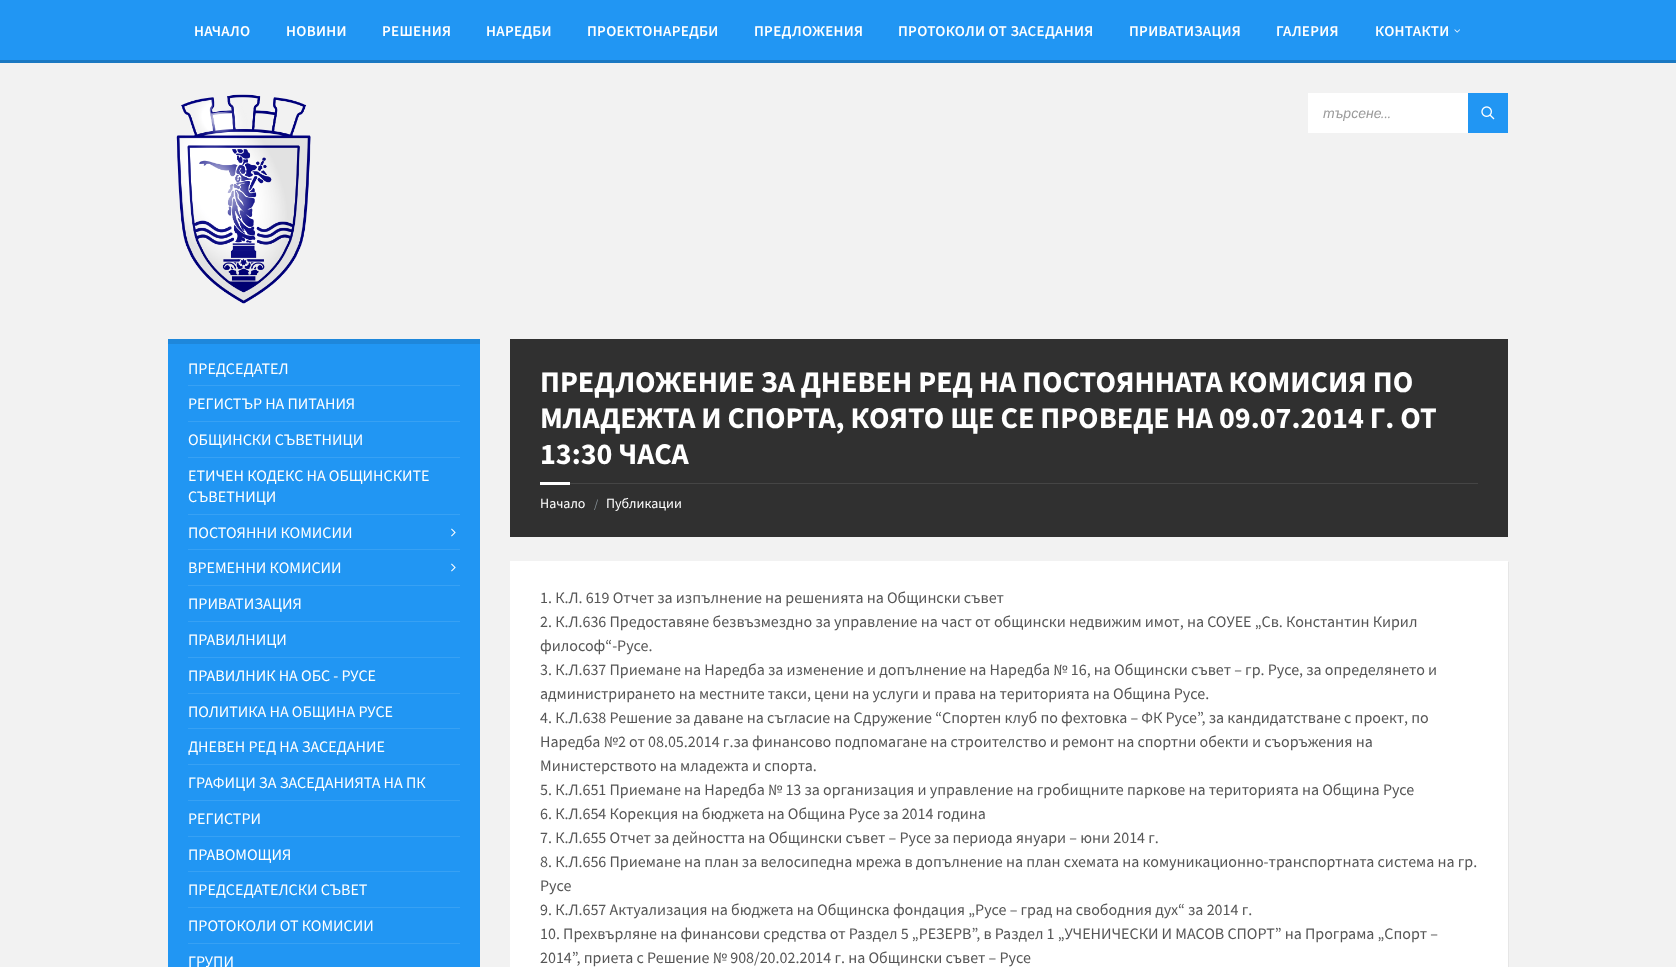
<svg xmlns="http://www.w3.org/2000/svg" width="1676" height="967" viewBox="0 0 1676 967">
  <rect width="100%" height="100%" fill="#f2f2f2"/>
  <rect x="0" y="0" width="1676" height="60" fill="#2196f3"/>
  <rect x="0" y="60" width="1676" height="3" fill="#1a78c2"/>
  <text x="194" y="36" font-family="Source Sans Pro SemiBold" font-size="15" font-weight="600" letter-spacing="0.3" fill="#ffffff">НАЧАЛО</text>
  <text x="286" y="36" font-family="Source Sans Pro SemiBold" font-size="15" font-weight="600" letter-spacing="0.3" fill="#ffffff">НОВИНИ</text>
  <text x="382" y="36" font-family="Source Sans Pro SemiBold" font-size="15" font-weight="600" letter-spacing="0.3" fill="#ffffff">РЕШЕНИЯ</text>
  <text x="486" y="36" font-family="Source Sans Pro SemiBold" font-size="15" font-weight="600" letter-spacing="0.3" fill="#ffffff">НАРЕДБИ</text>
  <text x="587" y="36" font-family="Source Sans Pro SemiBold" font-size="15" font-weight="600" letter-spacing="0.3" fill="#ffffff">ПРОЕКТОНАРЕДБИ</text>
  <text x="754" y="36" font-family="Source Sans Pro SemiBold" font-size="15" font-weight="600" letter-spacing="0.3" fill="#ffffff">ПРЕДЛОЖЕНИЯ</text>
  <text x="898" y="36" font-family="Source Sans Pro SemiBold" font-size="15" font-weight="600" letter-spacing="0.3" fill="#ffffff">ПРОТОКОЛИ ОТ ЗАСЕДАНИЯ</text>
  <text x="1129" y="36" font-family="Source Sans Pro SemiBold" font-size="15" font-weight="600" letter-spacing="0.3" fill="#ffffff">ПРИВАТИЗАЦИЯ</text>
  <text x="1276" y="36" font-family="Source Sans Pro SemiBold" font-size="15" font-weight="600" letter-spacing="0.3" fill="#ffffff">ГАЛЕРИЯ</text>
  <text x="1375" y="36" font-family="Source Sans Pro SemiBold" font-size="15" font-weight="600" letter-spacing="0.3" fill="#ffffff">КОНТАКТИ</text>
  <image x="1454" y="29" width="6" height="4" href="img1.png"/>
  <image x="176" y="94" width="135" height="210" href="img2.png"/>
  <rect x="1308" y="93" width="160" height="40" fill="#ffffff"/>
  <text x="1323" y="118" font-family="Liberation Sans" font-size="14" font-style="italic" fill="#9a9a9a">търсене</text>
  <text x="1381" y="118" font-family="Source Sans Pro" font-size="14" font-style="italic" fill="#9a9a9a">...</text>
  <rect x="1468" y="93" width="40" height="40" fill="#2196f3"/>
  <image x="1481" y="106" width="14" height="14" href="img3.png"/>
  <rect x="168" y="344" width="312" height="623" fill="#2196f3"/>
  <rect x="168" y="339" width="312" height="5" fill="#1e87db"/>
  <text x="188" y="374" font-family="Source Sans Pro" font-size="16" fill="#ffffff">ПРЕДСЕДАТЕЛ</text>
  <rect x="188" y="385" width="272" height="1" fill="#37a1f4"/>
  <text x="188" y="409" font-family="Source Sans Pro" font-size="16" fill="#ffffff">РЕГИСТЪР НА ПИТАНИЯ</text>
  <rect x="188" y="421" width="272" height="1" fill="#37a1f4"/>
  <text x="188" y="445" font-family="Source Sans Pro" font-size="16" fill="#ffffff">ОБЩИНСКИ СЪВЕТНИЦИ</text>
  <rect x="188" y="457" width="272" height="1" fill="#37a1f4"/>
  <text x="188" y="481" font-family="Source Sans Pro" font-size="16" fill="#ffffff">ЕТИЧЕН КОДЕКС НА ОБЩИНСКИТЕ</text>
  <text x="188" y="502" font-family="Source Sans Pro" font-size="16" fill="#ffffff">СЪВЕТНИЦИ</text>
  <rect x="188" y="514" width="272" height="1" fill="#37a1f4"/>
  <text x="188" y="538" font-family="Source Sans Pro" font-size="16" fill="#ffffff">ПОСТОЯННИ КОМИСИИ</text>
  <image x="451" y="528" width="5" height="9" href="img4.png"/>
  <rect x="188" y="549" width="272" height="1" fill="#37a1f4"/>
  <text x="188" y="573" font-family="Source Sans Pro" font-size="16" fill="#ffffff">ВРЕМЕННИ КОМИСИИ</text>
  <image x="451" y="563" width="5" height="9" href="img4.png"/>
  <rect x="188" y="585" width="272" height="1" fill="#37a1f4"/>
  <text x="188" y="609" font-family="Source Sans Pro" font-size="16" fill="#ffffff">ПРИВАТИЗАЦИЯ</text>
  <rect x="188" y="621" width="272" height="1" fill="#37a1f4"/>
  <text x="188" y="645" font-family="Source Sans Pro" font-size="16" fill="#ffffff">ПРАВИЛНИЦИ</text>
  <rect x="188" y="657" width="272" height="1" fill="#37a1f4"/>
  <text x="188" y="681" font-family="Source Sans Pro" font-size="16" fill="#ffffff">ПРАВИЛНИК НА ОБС - РУСЕ</text>
  <rect x="188" y="693" width="272" height="1" fill="#37a1f4"/>
  <text x="188" y="717" font-family="Source Sans Pro" font-size="16" fill="#ffffff">ПОЛИТИКА НА ОБЩИНА РУСЕ</text>
  <rect x="188" y="728" width="272" height="1" fill="#37a1f4"/>
  <text x="188" y="752" font-family="Source Sans Pro" font-size="16" fill="#ffffff">ДНЕВЕН РЕД НА ЗАСЕДАНИЕ</text>
  <rect x="188" y="764" width="272" height="1" fill="#37a1f4"/>
  <text x="188" y="788" font-family="Source Sans Pro" font-size="16" fill="#ffffff">ГРАФИЦИ ЗА ЗАСЕДАНИЯТА НА ПК</text>
  <rect x="188" y="800" width="272" height="1" fill="#37a1f4"/>
  <text x="188" y="824" font-family="Source Sans Pro" font-size="16" fill="#ffffff">РЕГИСТРИ</text>
  <rect x="188" y="836" width="272" height="1" fill="#37a1f4"/>
  <text x="188" y="860" font-family="Source Sans Pro" font-size="16" fill="#ffffff">ПРАВОМОЩИЯ</text>
  <rect x="188" y="871" width="272" height="1" fill="#37a1f4"/>
  <text x="188" y="895" font-family="Source Sans Pro" font-size="16" fill="#ffffff">ПРЕДСЕДАТЕЛСКИ СЪВЕТ</text>
  <rect x="188" y="907" width="272" height="1" fill="#37a1f4"/>
  <text x="188" y="931" font-family="Source Sans Pro" font-size="16" fill="#ffffff">ПРОТОКОЛИ ОТ КОМИСИИ</text>
  <rect x="188" y="943" width="272" height="1" fill="#37a1f4"/>
  <text x="188" y="967" font-family="Source Sans Pro" font-size="16" fill="#ffffff">ГРУПИ</text>
  <rect x="510" y="339" width="998" height="198" fill="#303030"/>
  <text x="540" y="392" font-family="Source Sans Pro" font-size="30" font-weight="bold" fill="#ffffff">ПРЕДЛОЖЕНИЕ ЗА ДНЕВЕН РЕД НА ПОСТОЯННАТА КОМИСИЯ ПО</text>
  <text x="540" y="428" font-family="Source Sans Pro" font-size="30" font-weight="bold" fill="#ffffff">МЛАДЕЖТА И СПОРТА, КОЯТО ЩЕ СЕ ПРОВЕДЕ НА 09.07.2014 Г. ОТ</text>
  <text x="540" y="464" font-family="Source Sans Pro" font-size="30" font-weight="bold" fill="#ffffff">13:30 ЧАСА</text>
  <rect x="570" y="483" width="908" height="1" fill="#454545"/>
  <rect x="540" y="482" width="30" height="3" fill="#ffffff"/>
  <text x="540" y="508" font-family="Source Sans Pro" font-size="14" fill="#ffffff">Начало</text>
  <text x="594" y="508" font-family="Source Sans Pro" font-size="12" fill="#8a949b">/</text>
  <text x="606" y="508" font-family="Source Sans Pro" font-size="14" fill="#ffffff">Публикации</text>
  <path d="M511 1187V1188H1509V562H1508V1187Z" fill="#e6e6e6"/>
  <rect x="510" y="561" width="998" height="406" fill="#ffffff"/>
  <text x="540" y="603" font-family="Source Sans Pro" font-size="16" fill="#565656">1. К.Л. 619 Отчет за изпълнение на решенията на Общински съвет</text>
  <text x="540" y="627" font-family="Source Sans Pro" font-size="16" fill="#565656">2. К.Л.636 Предоставяне безвъзмездно за управление на част от общински недвижим имот, на СОУЕЕ „Св. Константин Кирил</text>
  <text x="540" y="651" font-family="Source Sans Pro" font-size="16" fill="#565656">философ“-Русе.</text>
  <text x="540" y="675" font-family="Source Sans Pro" font-size="16" fill="#565656">3. К.Л.637 Приемане на Наредба за изменение и допълнение на Наредба № 16, на Общински съвет – гр. Русе, за определянето и</text>
  <text x="540" y="699" font-family="Source Sans Pro" font-size="16" fill="#565656">администрирането на местните такси, цени на услуги и права на територията на Община Русе.</text>
  <text x="540" y="723" font-family="Source Sans Pro" font-size="16" fill="#565656">4. К.Л.638 Решение за даване на съгласие на Сдружение “Спортен клуб по фехтовка – ФК Русе”, за кандидатстване с проект, по</text>
  <text x="540" y="747" font-family="Source Sans Pro" font-size="16" fill="#565656">Наредба №2 от 08.05.2014 г.за финансово подпомагане на строителство и ремонт на спортни обекти и съоръжения на</text>
  <text x="540" y="771" font-family="Source Sans Pro" font-size="16" fill="#565656">Министерството на младежта и спорта.</text>
  <text x="540" y="795" font-family="Source Sans Pro" font-size="16" fill="#565656">5. К.Л.651 Приемане на Наредба № 13 за организация и управление на гробищните паркове на територията на Община Русе</text>
  <text x="540" y="819" font-family="Source Sans Pro" font-size="16" fill="#565656">6. К.Л.654 Корекция на бюджета на Община Русе за 2014 година</text>
  <text x="540" y="843" font-family="Source Sans Pro" font-size="16" fill="#565656">7. К.Л.655 Отчет за дейността на Общински съвет – Русе за периода януари – юни 2014 г.</text>
  <text x="540" y="867" font-family="Source Sans Pro" font-size="16" fill="#565656">8. К.Л.656 Приемане на план за велосипедна мрежа в допълнение на план схемата на комуникационно-транспортната система на гр.</text>
  <text x="540" y="891" font-family="Source Sans Pro" font-size="16" fill="#565656">Русе</text>
  <text x="540" y="915" font-family="Source Sans Pro" font-size="16" fill="#565656">9. К.Л.657 Актуализация на бюджета на Общинска фондация „Русе – град на свободния дух“ за 2014 г.</text>
  <text x="540" y="939" font-family="Source Sans Pro" font-size="16" fill="#565656">10. Прехвърляне на финансови средства от Раздел 5 „РЕЗЕРВ”, в Раздел 1 „УЧЕНИЧЕСКИ И МАСОВ СПОРТ” на Програма „Спорт –</text>
  <text x="540" y="963" font-family="Source Sans Pro" font-size="16" fill="#565656">2014”, приета с Решение № 908/20.02.2014 г. на Общински съвет – Русе</text>
</svg>
